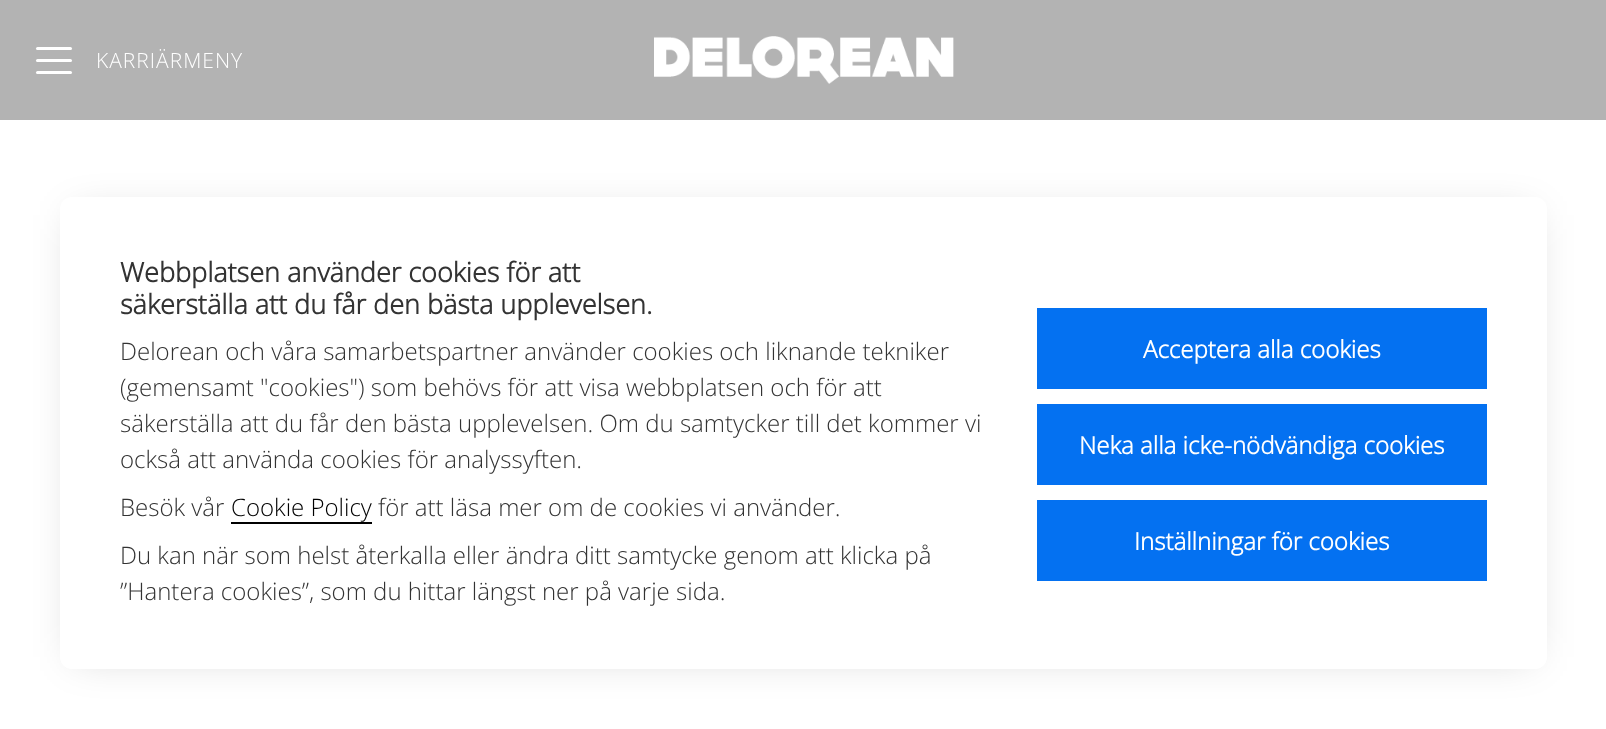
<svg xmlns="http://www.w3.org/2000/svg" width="1606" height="729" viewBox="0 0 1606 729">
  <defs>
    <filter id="blur1" x="-50%" y="-200%" width="200%" height="500%"><feGaussianBlur stdDeviation="20"/></filter>
  </defs>
  <rect width="100%" height="100%" fill="#ffffff"/>
  <rect x="0" y="0" width="1606" height="120" fill="#b3b3b3"/>
  <rect x="36" y="47" width="36" height="3" rx="1.5" fill="#ffffff"/>
  <rect x="36" y="59" width="36" height="3" rx="1.5" fill="#ffffff"/>
  <rect x="36" y="71" width="36" height="3" rx="1.5" fill="#ffffff"/>
  <text x="96" y="68" font-family="Open Sans" font-size="21" font-weight="300" letter-spacing="1" fill="#ffffff">KARRIÄRMENY</text>
  <image x="654" y="36" width="300" height="48" href="img1.png"/>
  <rect x="75" y="215" width="1457" height="442" fill="#000000" fill-opacity="0.18" filter="url(#blur1)"/>
  <rect x="60" y="197" width="1487" height="472" rx="12" fill="#ffffff"/>
  <text x="120" y="282" font-family="Open Sans" font-size="27" font-weight="bold" fill="#333333">Webbplatsen använder cookies för att</text>
  <text x="120" y="314" font-family="Open Sans" font-size="27" font-weight="bold" fill="#333333">säkerställa att du får den bästa upplevelsen.</text>
  <text x="120" y="360" font-family="Open Sans" font-size="24" font-weight="300" fill="#333333">Delorean och våra samarbetspartner använder cookies och liknande tekniker</text>
  <text x="120" y="396" font-family="Open Sans" font-size="24" font-weight="300" fill="#333333">(gemensamt "cookies") som behövs för att visa webbplatsen och för att</text>
  <text x="120" y="432" font-family="Open Sans" font-size="24" font-weight="300" fill="#333333">säkerställa att du får den bästa upplevelsen. Om du samtycker till det kommer vi</text>
  <text x="120" y="468" font-family="Open Sans" font-size="24" font-weight="300" fill="#333333">också att använda cookies för analyssyften.</text>
  <text x="120" y="516" font-family="Open Sans" font-size="24" font-weight="300" fill="#333333">Besök vår</text>
  <text x="231" y="516" font-family="Open Sans" font-size="24" font-weight="300" fill="#000000">Cookie Policy</text>
  <rect x="231" y="522" width="141" height="2" fill="#000000"/>
  <text x="378" y="516" font-family="Open Sans" font-size="24" font-weight="300" fill="#333333">för att läsa mer om de cookies vi använder.</text>
  <text x="120" y="564" font-family="Open Sans" font-size="24" font-weight="300" fill="#333333">Du kan när som helst återkalla eller ändra ditt samtycke genom att klicka på</text>
  <text x="120" y="600" font-family="Open Sans" font-size="24" font-weight="300" fill="#333333">”Hantera cookies”, som du hittar längst ner på varje sida.</text>
  <rect x="1037" y="308" width="450" height="81" fill="#0471f1"/>
  <text x="1143" y="358" font-family="Open Sans" font-size="24" font-weight="bold" fill="#ffffff">Acceptera alla cookies</text>
  <rect x="1037" y="404" width="450" height="81" fill="#0471f1"/>
  <text x="1079" y="454" font-family="Open Sans" font-size="24" font-weight="bold" fill="#ffffff">Neka alla icke-nödvändiga cookies</text>
  <rect x="1037" y="500" width="450" height="81" fill="#0471f1"/>
  <text x="1134" y="550" font-family="Open Sans" font-size="24" font-weight="bold" fill="#ffffff">Inställningar för cookies</text>
</svg>
